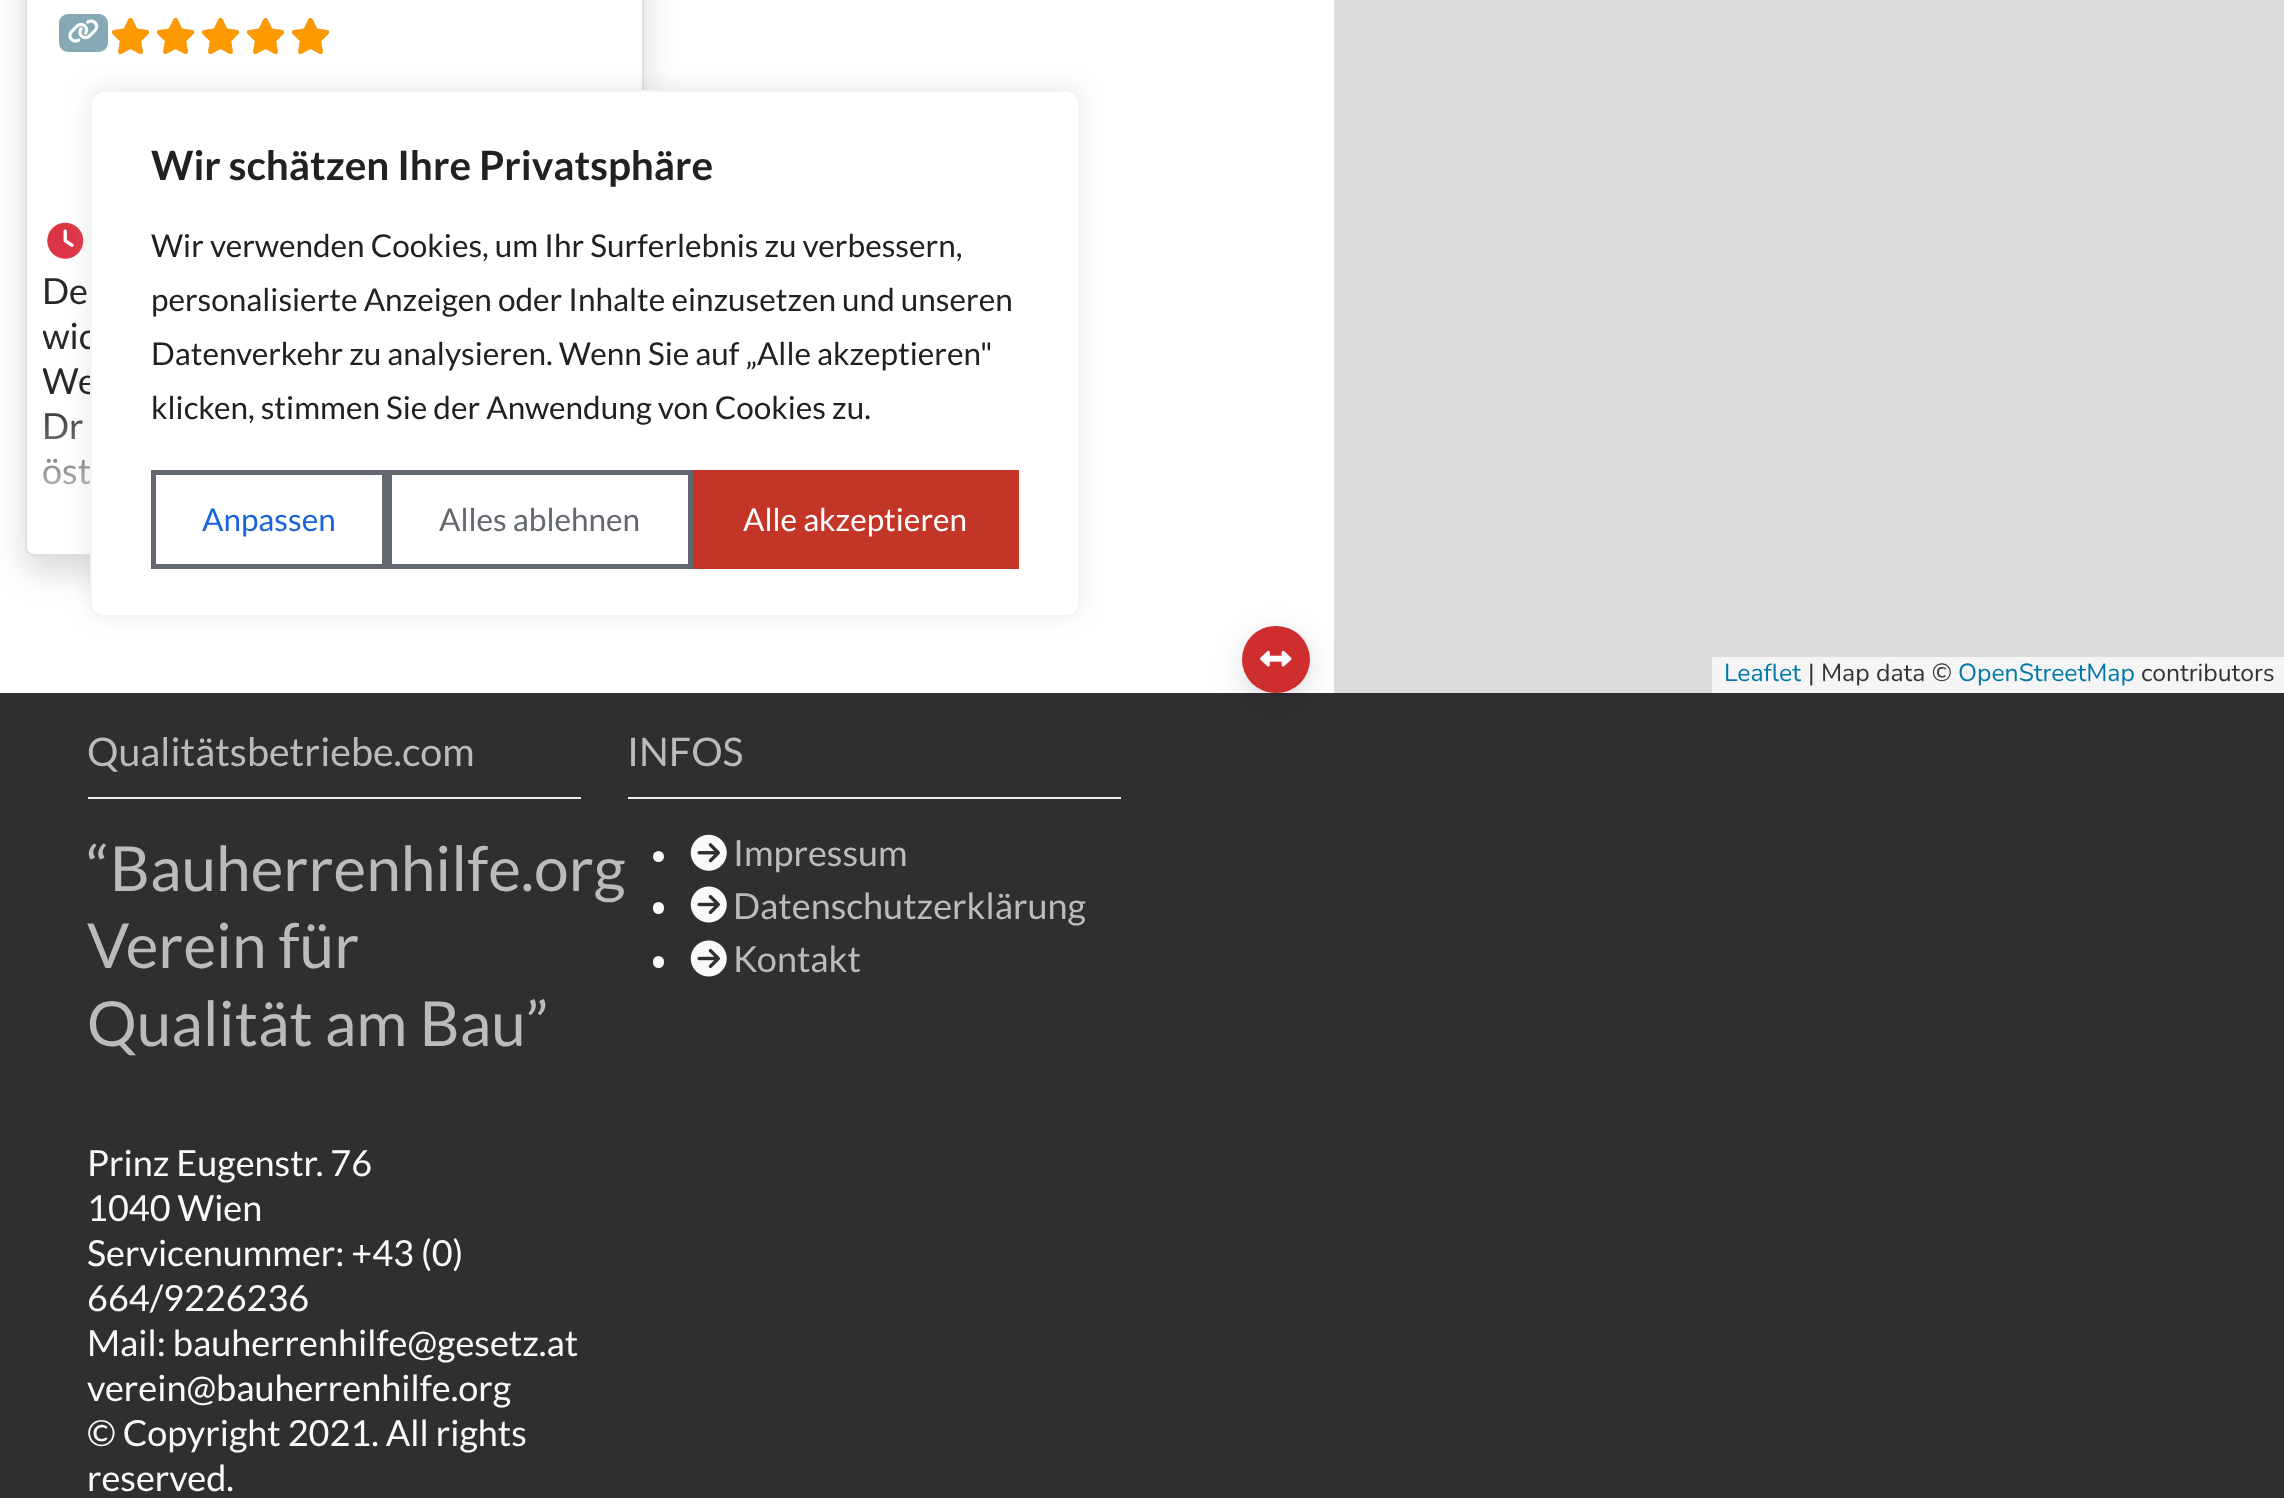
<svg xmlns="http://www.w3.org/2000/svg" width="2284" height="1498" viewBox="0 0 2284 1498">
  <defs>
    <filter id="blur1" x="-50%" y="-200%" width="200%" height="500%"><feGaussianBlur stdDeviation="16"/></filter>
    <linearGradient id="g1" gradientUnits="userSpaceOnUse" x1="334" y1="398" x2="334" y2="538"><stop offset="0" stop-color="#ffffff" stop-opacity="0"/><stop offset="1" stop-color="#ffffff"/></linearGradient>
    <filter id="blur2" x="-50%" y="-200%" width="200%" height="500%"><feGaussianBlur stdDeviation="11"/></filter>
    <clipPath id="clip1"><rect x="43" y="268" width="583" height="270"/></clipPath>
    <filter id="blur3" x="-50%" y="-200%" width="200%" height="500%"><feGaussianBlur stdDeviation="8"/></filter>
  </defs>
  <rect width="100%" height="100%" fill="#ffffff"/>
  <rect x="25" y="-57" width="619" height="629" rx="9" fill="#000000" fill-opacity="0.15" filter="url(#blur1)"/>
  <rect x="25" y="-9" width="619" height="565" rx="9" fill="#ffffff"/>
  <rect x="26" y="-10" width="617" height="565" rx="8" fill="none" stroke="#000000" stroke-opacity="0.12" stroke-width="2"/>
  <image x="47" y="222" width="37" height="37" href="img4.png"/>
  <text x="42" y="439" font-family="Lato" font-size="36" fill="#2b2725">Dr</text>
  <text x="42" y="484" font-family="Lato" font-size="36" fill="#2b2725">öst</text>
  <rect x="43" y="413" width="47" height="72" fill="url(#g1)"/>
  <rect x="90" y="88" width="990" height="526" rx="14" fill="#acabab" fill-opacity="0.3" filter="url(#blur2)"/>
  <g clip-path="url(#clip1)">
    <text x="42" y="349" font-family="Lato" font-size="36" fill="#2b2725">wic</text>
    <text x="42" y="394" font-family="Lato" font-size="36" fill="#2b2725">We</text>
  </g>
  <rect x="91" y="91" width="988" height="525" rx="13" fill="#ffffff" stroke="#f4f4f4" stroke-width="2"/>
  <text x="151" y="180" font-family="Lato" font-size="40.5" font-weight="bold" fill="#212121">Wir schätzen Ihre Privatsphäre</text>
  <text x="151" y="257" font-family="Lato" font-size="31.5" fill="#212121">Wir verwenden Cookies, um Ihr Surferlebnis zu verbessern,</text>
  <text x="151" y="311" font-family="Lato" font-size="31.5" fill="#212121">personalisierte Anzeigen oder Inhalte einzusetzen und unseren</text>
  <text x="151" y="365" font-family="Lato" font-size="31.5" fill="#212121">Datenverkehr zu analysieren. Wenn Sie auf „Alle akzeptieren"</text>
  <text x="151" y="419" font-family="Lato" font-size="31.5" fill="#212121">klicken, stimmen Sie der Anwendung von Cookies zu.</text>
  <rect x="153.5" y="472.5" width="231" height="94" fill="none" stroke="#636870" stroke-width="5"/>
  <text x="202" y="531" font-family="Lato" font-size="31.5" fill="#1863dc">Anpassen</text>
  <rect x="389.5" y="472.5" width="301" height="94" fill="none" stroke="#636870" stroke-width="5"/>
  <text x="439" y="531" font-family="Lato" font-size="31.5" fill="#636870">Alles ablehnen</text>
  <rect x="693" y="470" width="326" height="99" fill="#c33527"/>
  <text x="743" y="531" font-family="Lato" font-size="31.5" fill="#ffffff">Alle akzeptieren</text>
  <rect x="59" y="14" width="49" height="38" rx="9" fill="#85a9b5"/>
  <image x="68" y="19" width="31" height="24" href="img1.png"/>
  <image x="112" y="18" width="38" height="36" href="img2.png"/>
  <image x="157" y="18" width="38" height="36" href="img2.png"/>
  <image x="202" y="18" width="38" height="36" href="img2.png"/>
  <image x="247" y="18" width="38" height="36" href="img2.png"/>
  <image x="292" y="18" width="38" height="36" href="img2.png"/>
  <image x="112" y="18" width="38" height="36" href="img3.png"/>
  <image x="157" y="18" width="38" height="36" href="img3.png"/>
  <image x="202" y="18" width="38" height="36" href="img3.png"/>
  <image x="247" y="18" width="38" height="36" href="img3.png"/>
  <image x="292" y="18" width="38" height="36" href="img3.png"/>
  <text x="42" y="304" font-family="Lato" font-size="36" fill="#2b2725">De</text>
  <rect x="1334" y="0" width="950" height="693" fill="#dddddd"/>
  <rect x="0" y="693" width="2284" height="805" fill="#2f2f2f"/>
  <rect x="1242" y="635" width="68" height="67" rx="33.5" fill="#1f1b2d" fill-opacity="0.12" filter="url(#blur1)"/>
  <rect x="1251" y="637" width="52" height="52" rx="26" fill="#1f1b2d" fill-opacity="0.12" filter="url(#blur3)"/>
  <rect x="1242" y="626" width="68" height="67" rx="33.5" fill="#cf2e2e"/>
  <image x="1260" y="650" width="32" height="17" href="img5.png"/>
  <rect x="1712" y="657" width="572" height="36" fill="#f5f5f5"/>
  <text x="1724" y="681" font-family="Nunito" font-size="24.75" fill="#0078a8">Leaflet</text>
  <text x="1808" y="681" font-family="Nunito" font-size="24.75" fill="#333333">| Map data ©</text>
  <text x="1958" y="681" font-family="Nunito" font-size="24.75" fill="#0078a8">OpenStreetMap</text>
  <text x="2141" y="681" font-family="Nunito" font-size="24.75" fill="#333333">contributors</text>
  <rect x="88" y="797" width="493" height="2" fill="#efecf3"/>
  <text x="87" y="766" font-family="Lato" font-size="39.4" fill="#bbbbbb">Qualitätsbetriebe.com</text>
  <text x="87" y="891" font-family="Lato" font-size="62.25" fill="#bbbbbb">“Bauherrenhilfe.org</text>
  <text x="87" y="968" font-family="Lato" font-size="62.25" fill="#bbbbbb">Verein für</text>
  <text x="87" y="1046" font-family="Lato" font-size="62.25" fill="#bbbbbb">Qualität am Bau”</text>
  <text x="87" y="1176" font-family="Lato" font-size="36" fill="#f9f8fa">Prinz Eugenstr. 76</text>
  <text x="87" y="1221" font-family="Lato" font-size="36" fill="#f9f8fa">1040 Wien</text>
  <text x="87" y="1266" font-family="Lato" font-size="36" fill="#f9f8fa">Servicenummer: +43 (0)</text>
  <text x="87" y="1311" font-family="Lato" font-size="36" fill="#f9f8fa">664/9226236</text>
  <text x="87" y="1356" font-family="Lato" font-size="36" fill="#f9f8fa">Mail: bauherrenhilfe@gesetz.at</text>
  <text x="87" y="1401" font-family="Lato" font-size="36" fill="#f9f8fa">verein@bauherrenhilfe.org</text>
  <text x="87" y="1446" font-family="Lato" font-size="36" fill="#f9f8fa">© Copyright 2021. All rights</text>
  <text x="87" y="1491" font-family="Lato" font-size="36" fill="#f9f8fa">reserved.</text>
  <rect x="628" y="797" width="493" height="2" fill="#efecf3"/>
  <text x="627" y="766" font-family="Lato" font-size="39.4" fill="#bbbbbb">INFOS</text>
  <circle cx="658.5" cy="856.5" r="5.5" fill="#f9f8fa"/>
  <image x="690" y="834" width="37" height="37" href="img6.png"/>
  <text x="733" y="866" font-family="Lato" font-size="36" fill="#bbbbbb">Impressum</text>
  <rect x="653" y="902" width="11" height="12" rx="5.5" fill="#f9f8fa"/>
  <image x="690" y="886" width="37" height="37" href="img7.png"/>
  <text x="733" y="919" font-family="Lato" font-size="36" fill="#bbbbbb">Datenschutzerklärung</text>
  <rect x="653" y="956" width="11" height="12" rx="5.5" fill="#f9f8fa"/>
  <image x="690" y="940" width="37" height="37" href="img7.png"/>
  <text x="733" y="972" font-family="Lato" font-size="36" fill="#bbbbbb">Kontakt</text>
</svg>
